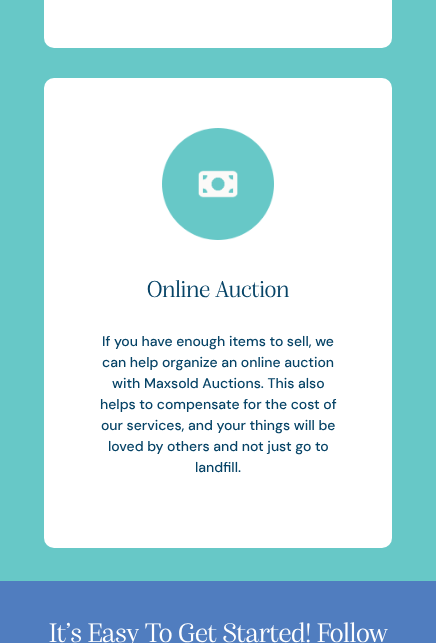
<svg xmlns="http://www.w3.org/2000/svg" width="436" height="643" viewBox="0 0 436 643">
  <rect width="100%" height="100%" fill="#67c8c7"/>
  <rect x="44" y="-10" width="348" height="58" rx="10" fill="#ffffff"/>
  <rect x="44" y="78" width="348" height="470" rx="10" fill="#ffffff"/>
  <image x="162" y="128" width="112" height="112" href="img1.png"/>
  <text x="147" y="297" font-family="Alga" font-size="24" fill="#064366">Online Auction</text>
  <text x="102" y="346" font-family="DM Sans" font-size="14" font-weight="500" fill="#064366">If you have enough items to sell, we</text>
  <text x="102" y="367" font-family="DM Sans" font-size="14" font-weight="500" fill="#064366">can help organize an online auction</text>
  <text x="112" y="388" font-family="DM Sans" font-size="14" font-weight="500" fill="#064366">with Maxsold Auctions. This also</text>
  <text x="100" y="409" font-family="DM Sans" font-size="14" font-weight="500" fill="#064366">helps to compensate for the cost of</text>
  <text x="101" y="430" font-family="DM Sans" font-size="14" font-weight="500" fill="#064366">our services, and your things will be</text>
  <text x="108" y="451" font-family="DM Sans" font-size="14" font-weight="500" fill="#064366">loved by others and not just go to</text>
  <text x="195" y="472" font-family="DM Sans" font-size="14" font-weight="500" fill="#064366">landfill.</text>
  <rect x="0" y="581" width="436" height="62" fill="#507dbf"/>
  <text x="49" y="642" font-family="Alga" font-size="28" fill="#ffffff">It’s Easy To Get Started! Follow</text>
</svg>
